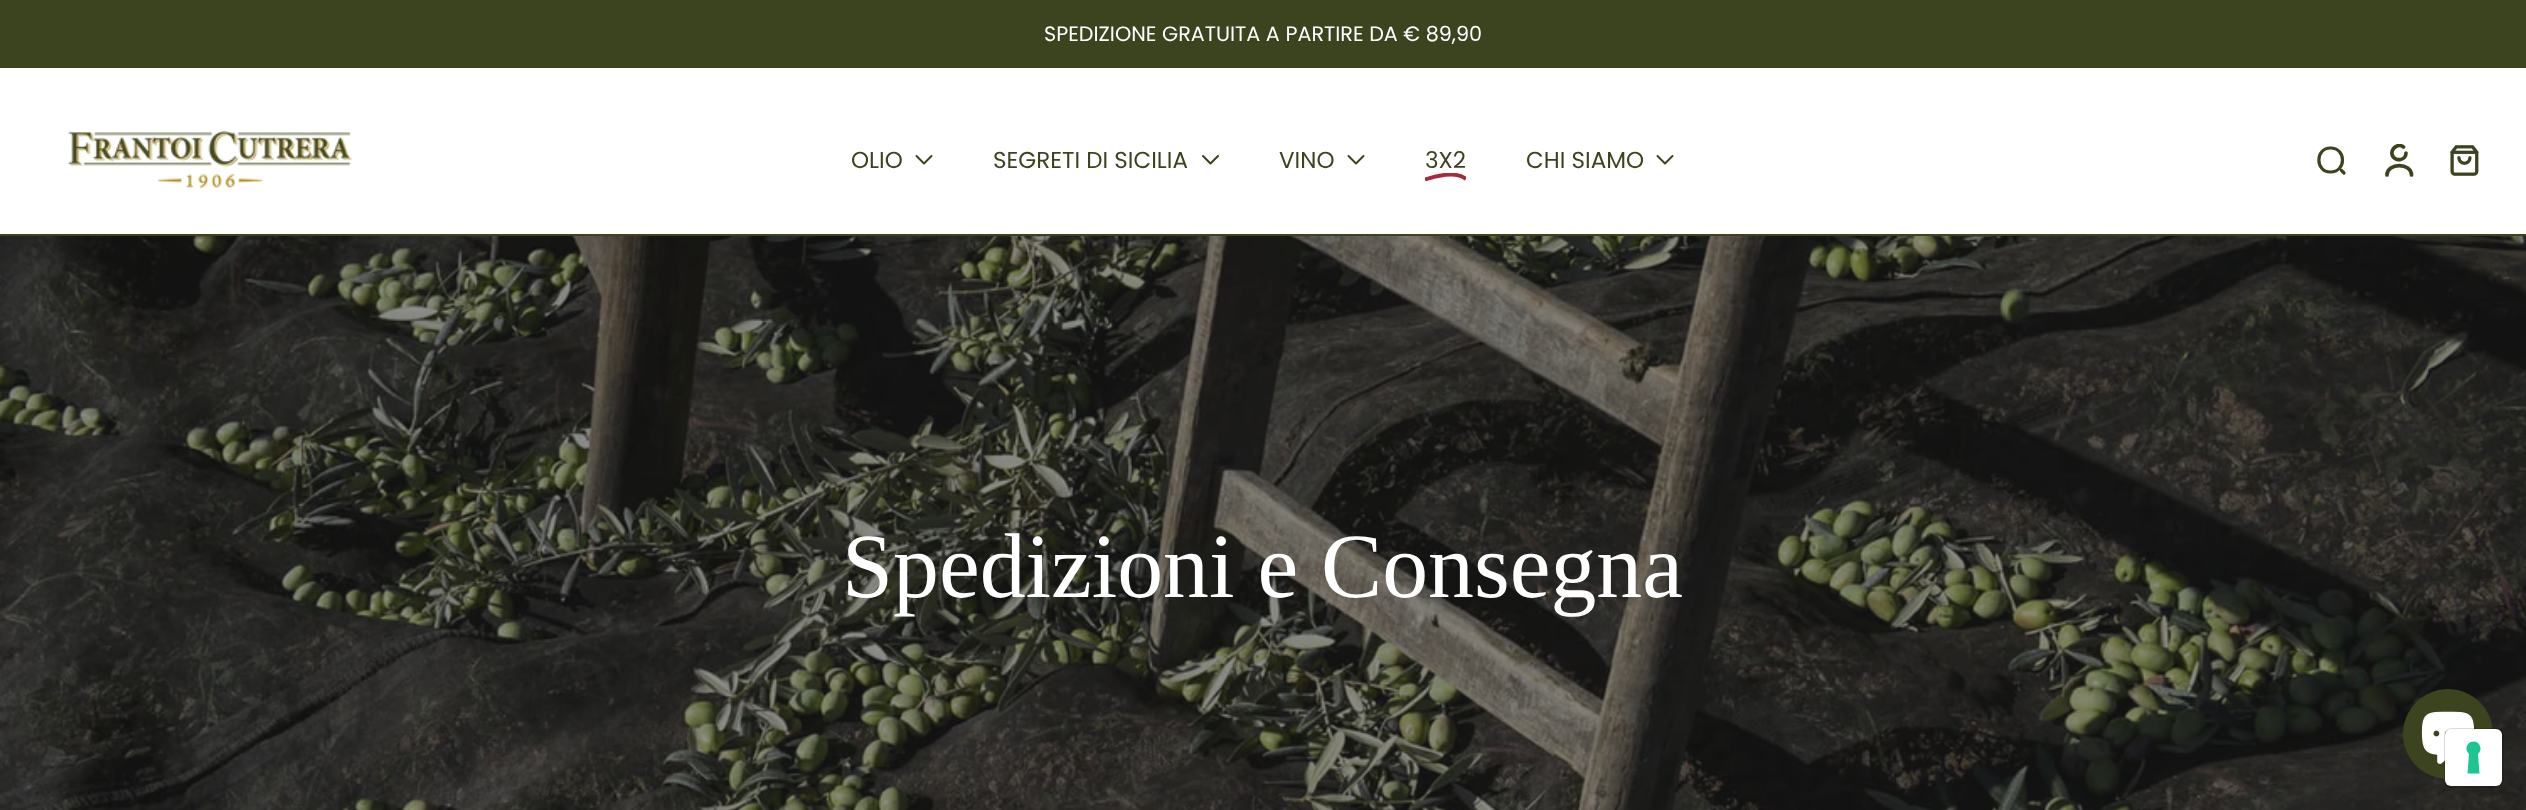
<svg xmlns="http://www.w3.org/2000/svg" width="2526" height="810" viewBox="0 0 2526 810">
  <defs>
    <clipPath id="clip1"><rect x="1425" y="173" width="41" height="9"/></clipPath>
    <clipPath id="clip2"><rect x="2382" y="144" width="33" height="33"/></clipPath>
  </defs>
  <rect width="100%" height="100%" fill="#ffffff"/>
  <rect x="0" y="0" width="2526" height="68" fill="#3b441e"/>
  <text x="1044" y="41" font-family="Poppins" font-size="20.75" fill="#ffffff">SPEDIZIONE GRATUITA A PARTIRE DA € 89,90</text>
  <image x="68" y="130" width="285" height="59" href="img1.png"/>
  <text x="851" y="168" font-family="Poppins" font-size="23" fill="#3b441e">OLIO</text>
  <path d="M916.5 156L924 163.5L931.5 156" fill="none" stroke="#3b441e" stroke-width="2" stroke-linecap="round" stroke-linejoin="round"/>
  <text x="993" y="168" font-family="Poppins" font-size="23" fill="#3b441e">SEGRETI DI SICILIA</text>
  <path d="M1203 156L1210.5 163.5L1218 156" fill="none" stroke="#3b441e" stroke-width="2" stroke-linecap="round" stroke-linejoin="round"/>
  <text x="1279" y="168" font-family="Poppins" font-size="23" fill="#3b441e">VINO</text>
  <path d="M1348.5 156L1356 163.5L1363.5 156" fill="none" stroke="#3b441e" stroke-width="2" stroke-linecap="round" stroke-linejoin="round"/>
  <text x="1425" y="168" font-family="Poppins" font-size="23" fill="#3b441e">3X2</text>
  <g clip-path="url(#clip1)">
    <path d="M1425 179.5C1434.5 176 1456 170.5 1466 179" fill="none" stroke="#a8283c" stroke-width="3.8"/>
  </g>
  <text x="1526" y="168" font-family="Poppins" font-size="23" fill="#3b441e">CHI SIAMO</text>
  <path d="M1657.5 156L1665 163.5L1672.5 156" fill="none" stroke="#3b441e" stroke-width="2" stroke-linecap="round" stroke-linejoin="round"/>
  <path d="M2330.5 172C2346.5 172 2346.5 148 2330.5 148C2315 148 2315 172 2330.5 172ZM2344 173L2341.5 170.5" fill="none" stroke="#3b441e" stroke-width="3.2" stroke-linecap="round" stroke-linejoin="round"/>
  <g clip-path="url(#clip2)">
    <path d="M2403.5 147C2396 141.5 2387 153 2395 158.5C2396.5 159.5 2398.5 160 2400.5 159.5C2404 159 2406 156 2406 153" fill="none" stroke="#3b441e" stroke-width="3.7" stroke-linecap="round" stroke-linejoin="round"/>
  </g>
  <path d="M2411.5 175C2411.5 162.5 2387 162.5 2387 175" fill="none" stroke="#3b441e" stroke-width="3.7" stroke-linecap="round" stroke-linejoin="round"/>
  <image x="2450" y="145" width="29" height="31" href="img2.png"/>
  <rect x="0" y="234" width="2526" height="2" fill="#3b441e"/>
  <image x="0" y="236" width="2526" height="574" href="img3.png"/>
  <text x="842" y="597" font-family="Liberation Serif" font-size="91.75" fill="#ffffff">Spedizioni e Consegna</text>
  <circle cx="2448" cy="734" r="45" fill="#3b441e"/>
  <image x="2421" y="711" width="53" height="53" href="img4.png"/>
  <rect x="2445" y="729" width="58" height="58" rx="7" fill="none" stroke="#000000" stroke-opacity="0.15" stroke-width="2"/>
  <rect x="2445" y="729" width="57" height="57" rx="6" fill="#ffffff"/>
  <path d="M2473.5 741.5C2480 741.5 2483 749.5 2478 754L2479.5 773.5H2467.5L2469 754C2464 749.5 2467 741.5 2473.5 741.5Z" fill="#1cc691" fill-rule="evenodd"/>
</svg>
